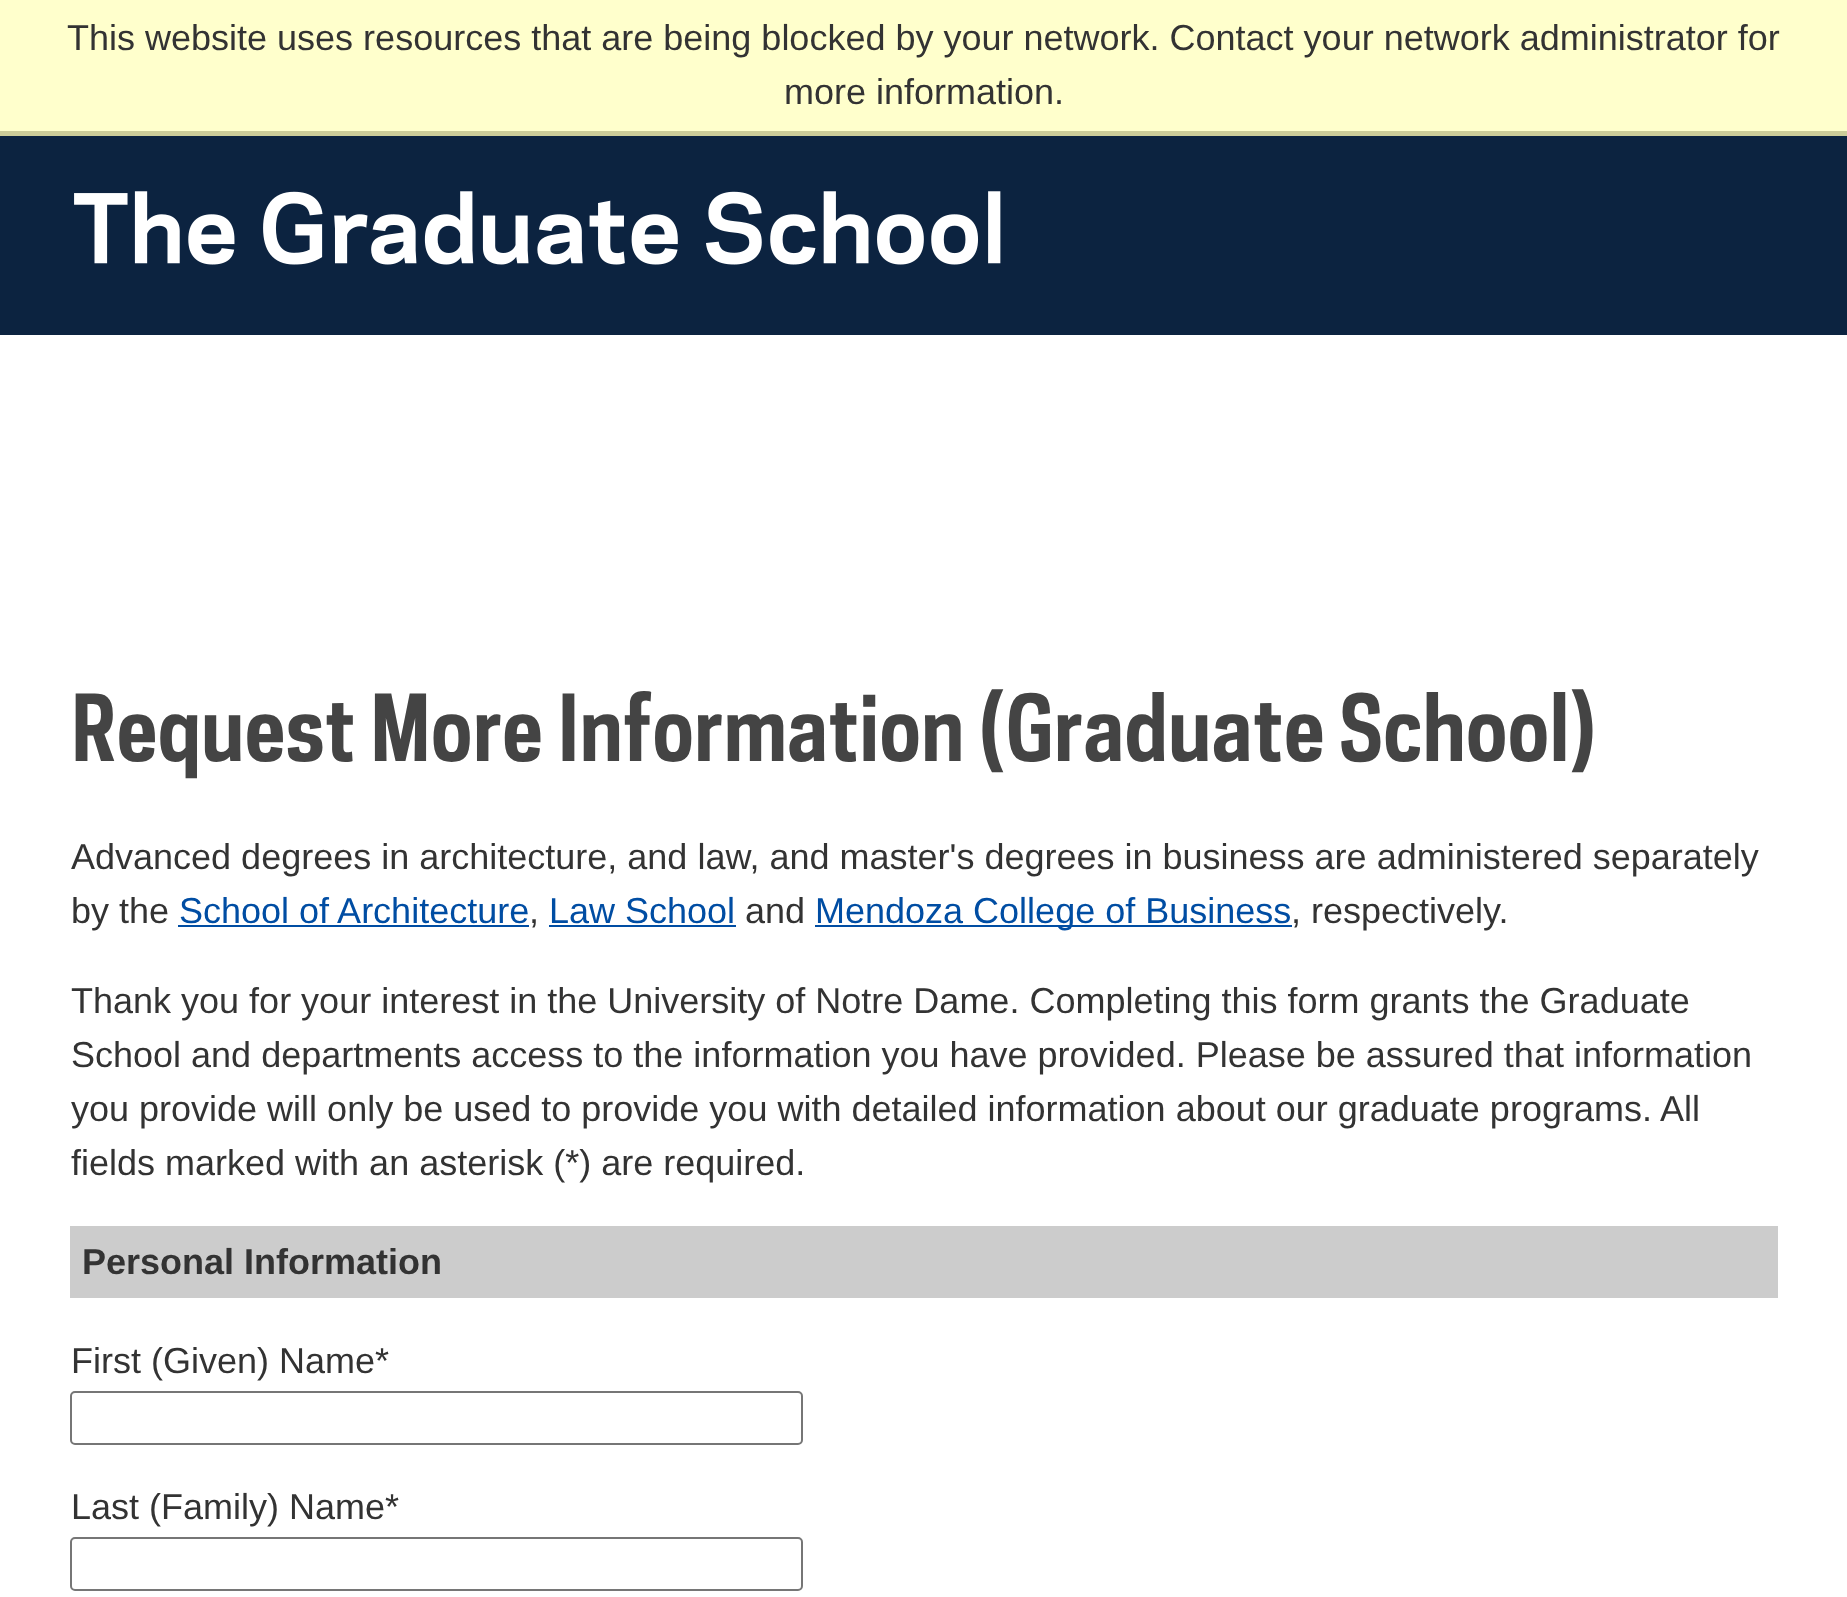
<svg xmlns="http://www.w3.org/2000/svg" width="1847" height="1597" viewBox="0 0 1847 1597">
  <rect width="100%" height="100%" fill="#ffffff"/>
  <rect x="0" y="0" width="1847" height="131" fill="#ffffcc"/>
  <rect x="0" y="131" width="1847" height="5" fill="#cccc99"/>
  <text x="67" y="50" font-family="Liberation Sans" font-size="36" fill="#333333">This website uses resources that are being blocked by your network. Contact your network administrator for</text>
  <text x="784" y="104" font-family="Liberation Sans" font-size="36" fill="#333333">more information.</text>
  <rect x="0" y="136" width="1847" height="199" fill="#0c2340"/>
  <image x="74" y="191" width="927" height="74" href="img1.png"/>
  <text x="71" y="761" font-family="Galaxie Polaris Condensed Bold" font-size="86.4" font-weight="bold" fill="#444444">Request More Information (Graduate School)</text>
  <text x="71" y="869" font-family="Liberation Sans" font-size="36" fill="#333333">Advanced degrees in architecture, and law, and master's degrees in business are administered separately</text>
  <text x="71" y="923" font-family="Liberation Sans" font-size="36" fill="#333333">by the</text>
  <text x="179" y="923" font-family="Liberation Sans" font-size="36" fill="#004da3">School of Architecture</text>
  <text x="529" y="923" font-family="Liberation Sans" font-size="36" fill="#333333">,</text>
  <rect x="178" y="925" width="351" height="2" fill="#004da3"/>
  <rect x="549" y="925" width="187" height="2" fill="#004da3"/>
  <text x="549" y="923" font-family="Liberation Sans" font-size="36" fill="#004da3">Law School</text>
  <text x="745" y="923" font-family="Liberation Sans" font-size="36" fill="#333333">and</text>
  <rect x="815" y="925" width="477" height="2" fill="#004da3"/>
  <text x="815" y="923" font-family="Liberation Sans" font-size="36" fill="#004da3">Mendoza College of Business</text>
  <text x="1291" y="923" font-family="Liberation Sans" font-size="36" fill="#333333">, respectively.</text>
  <text x="71" y="1013" font-family="Liberation Sans" font-size="36" fill="#333333">Thank you for your interest in the University of Notre Dame. Completing this form grants the Graduate</text>
  <text x="71" y="1067" font-family="Liberation Sans" font-size="36" fill="#333333">School and departments access to the information you have provided. Please be assured that information</text>
  <text x="71" y="1121" font-family="Liberation Sans" font-size="36" fill="#333333">you provide will only be used to provide you with detailed information about our graduate programs. All</text>
  <text x="71" y="1175" font-family="Liberation Sans" font-size="36" fill="#333333">fields marked with an asterisk (*) are required.</text>
  <rect x="70" y="1226" width="1708" height="72" fill="#cccccc"/>
  <text x="82" y="1274" font-family="Liberation Sans" font-size="36" font-weight="bold" fill="#333333">Personal Information</text>
  <text x="71" y="1373" font-family="Liberation Sans" font-size="36" fill="#333333">First (Given) Name*</text>
  <rect x="71" y="1392" width="731" height="52" rx="4" fill="none" stroke="#767676" stroke-width="2"/>
  <text x="71" y="1519" font-family="Liberation Sans" font-size="36" fill="#333333">Last (Family) Name*</text>
  <rect x="71" y="1538" width="731" height="52" rx="4" fill="none" stroke="#767676" stroke-width="2"/>
</svg>
